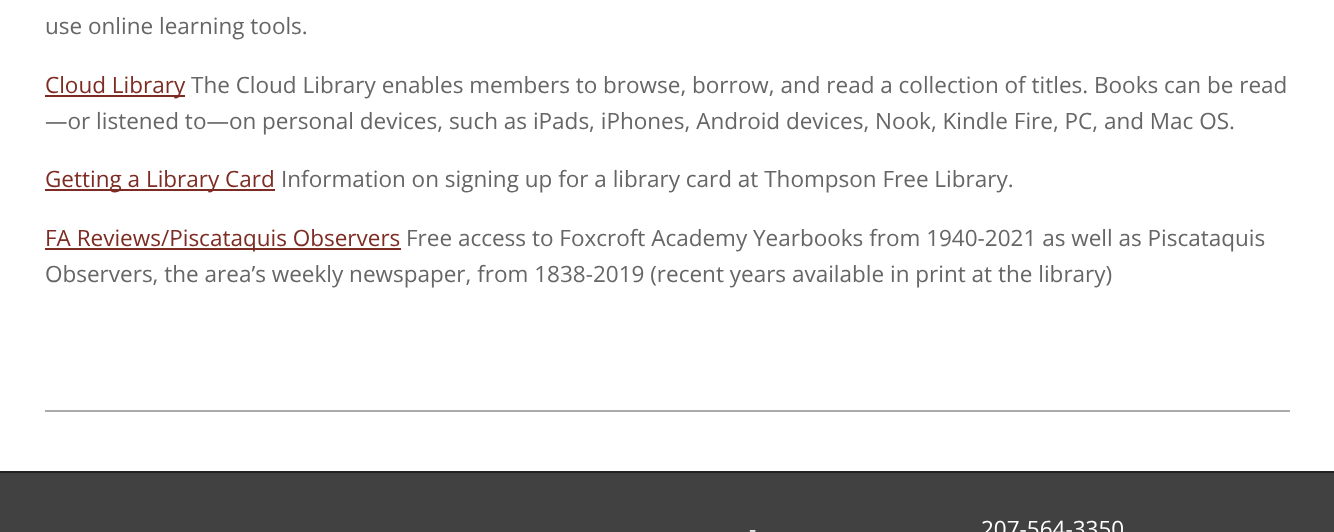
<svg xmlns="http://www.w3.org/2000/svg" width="1334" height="532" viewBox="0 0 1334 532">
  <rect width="100%" height="100%" fill="#ffffff"/>
  <rect x="45" y="410" width="1245" height="2" fill="#ababab"/>
  <text x="45" y="34" font-family="Open Sans" font-size="22.5" fill="#666666">use online learning tools.</text>
  <rect x="45" y="95" width="140" height="2" fill="#7d2c23"/>
  <text x="45" y="93" font-family="Open Sans" font-size="22.5" fill="#7d2c23">Cloud Library</text>
  <text x="191" y="93" font-family="Open Sans" font-size="22.5" fill="#666666">The Cloud Library enables members to browse, borrow, and read a collection of titles. Books can be read</text>
  <text x="45" y="129" font-family="Open Sans" font-size="22.5" fill="#666666">—or listened to—on personal devices, such as iPads, iPhones, Android devices, Nook, Kindle Fire, PC, and Mac OS.</text>
  <rect x="45" y="189" width="230" height="2" fill="#7d2c23"/>
  <text x="45" y="187" font-family="Open Sans" font-size="22.5" fill="#7d2c23">Getting a Library Card</text>
  <text x="281" y="187" font-family="Open Sans" font-size="22.5" fill="#666666">Information on signing up for a library card at Thompson Free Library.</text>
  <rect x="45" y="248" width="356" height="2" fill="#7d2c23"/>
  <text x="45" y="246" font-family="Open Sans" font-size="22.5" fill="#7d2c23">FA Reviews/Piscataquis Observers</text>
  <text x="406" y="246" font-family="Open Sans" font-size="22.5" fill="#666666">Free access to Foxcroft Academy Yearbooks from 1940-2021 as well as Piscataquis</text>
  <text x="45" y="282" font-family="Open Sans" font-size="22.5" fill="#666666">Observers, the area’s weekly newspaper, from 1838-2019 (recent years available in print at the library)</text>
  <rect x="0" y="471" width="1334" height="2" fill="#222222"/>
  <rect x="0" y="473" width="1334" height="59" fill="#414141"/>
  <text x="749" y="537" font-family="Open Sans" font-size="22.5" fill="#ffffff">-</text>
  <text x="981" y="537" font-family="Open Sans" font-size="22.5" fill="#ffffff">207-564-3350</text>
</svg>
